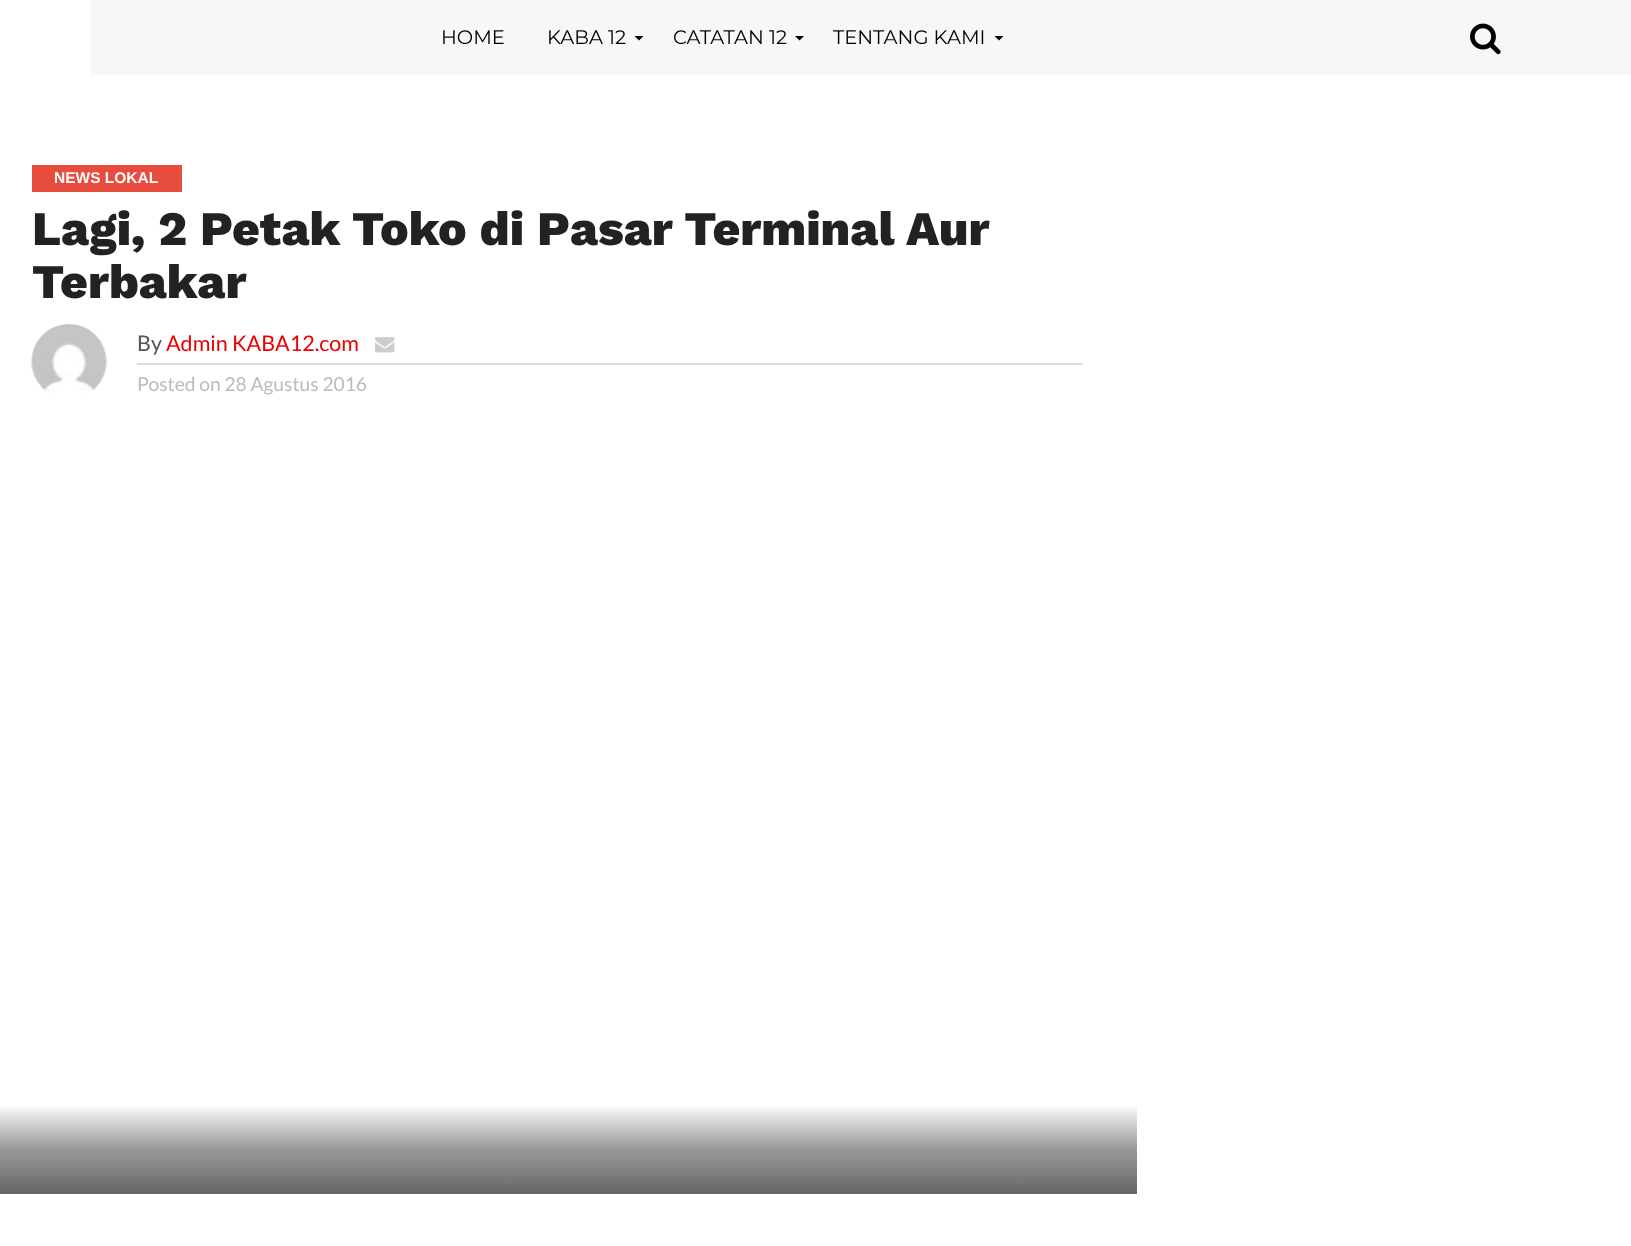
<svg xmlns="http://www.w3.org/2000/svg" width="1631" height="1246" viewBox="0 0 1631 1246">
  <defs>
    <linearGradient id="g1" gradientUnits="userSpaceOnUse" x1="557" y1="1104" x2="557" y2="1194"><stop offset="0" stop-color="#ffffff"/><stop offset="0.5" stop-color="#999999"/><stop offset="1" stop-color="#666666"/></linearGradient>
  </defs>
  <rect width="100%" height="100%" fill="#ffffff"/>
  <rect x="90" y="0" width="1541" height="75" fill="#f7f7f7"/>
  <text x="441" y="44" font-family="Montserrat" font-size="19.5" fill="#000000">HOME</text>
  <text x="547" y="44" font-family="Montserrat" font-size="19.5" fill="#000000">KABA 12</text>
  <path d="M634.5 36H643.5L639 40.5Z" fill="#000000"/>
  <text x="673" y="44" font-family="Montserrat" font-size="19.5" fill="#000000">CATATAN 12</text>
  <path d="M795 36H804L799.5 40.5Z" fill="#000000"/>
  <text x="833" y="44" font-family="Montserrat" font-size="19.5" fill="#000000">TENTANG KAMI</text>
  <path d="M994.5 36H1003.5L999 40.5Z" fill="#000000"/>
  <image x="1470" y="23" width="31" height="32" href="img1.png"/>
  <rect x="32" y="165" width="150" height="27" fill="#e74c3c"/>
  <text x="54" y="183" font-family="Liberation Sans" font-size="15.5" font-weight="bold" fill="#ffffff">NEWS LOKAL</text>
  <text x="32" y="245" font-family="Work Sans" font-size="48" font-weight="800" fill="#222222">Lagi, 2 Petak Toko di Pasar Terminal Aur</text>
  <text x="32" y="298" font-family="Work Sans" font-size="48" font-weight="800" fill="#222222">Terbakar</text>
  <image x="31" y="324" width="76" height="70" href="img2.png"/>
  <rect x="137" y="363" width="946" height="2" fill="#dddddd"/>
  <text x="137" y="351" font-family="Lato" font-size="21.5" fill="#555555">By</text>
  <text x="166" y="351" font-family="Lato" font-size="21.5" fill="#eb0303">Admin KABA12.com</text>
  <image x="375" y="337" width="20" height="16" href="img3.png"/>
  <text x="137" y="391" font-family="Lato" font-size="19.25" fill="#bbbbbb">Posted on 28 Agustus 2016</text>
  <rect x="0" y="1105" width="1137" height="89" fill="url(#g1)"/>
</svg>
